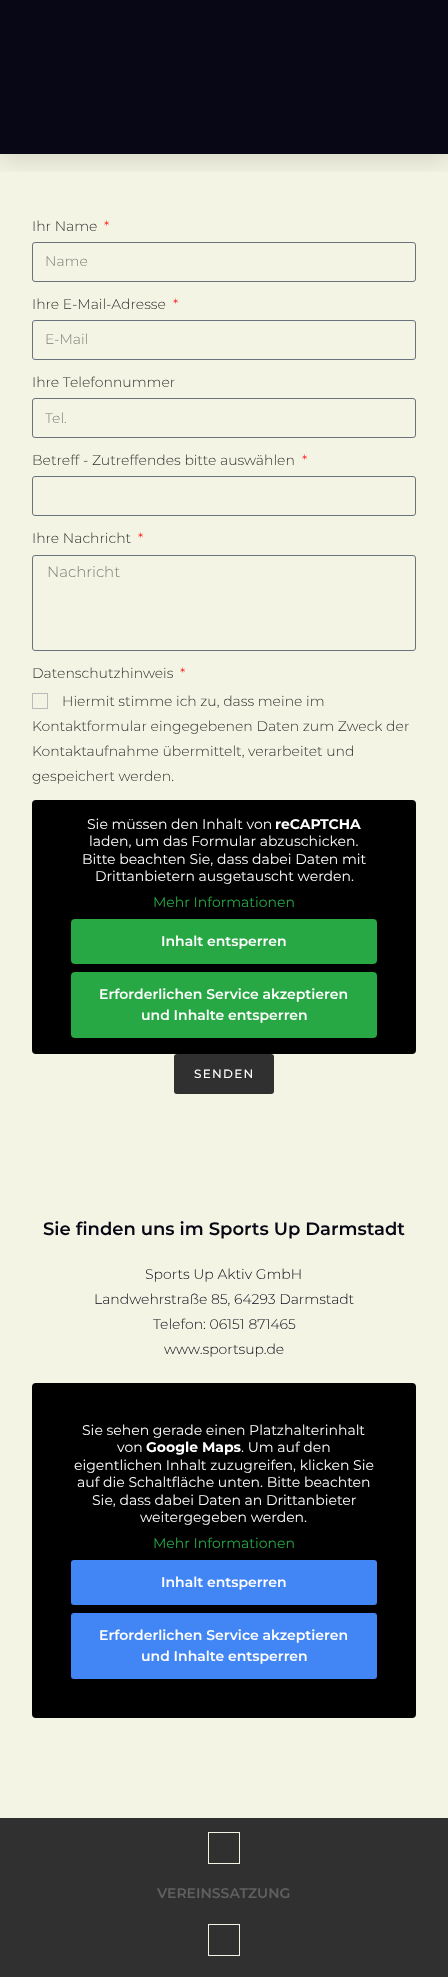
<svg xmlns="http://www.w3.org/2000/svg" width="448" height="1977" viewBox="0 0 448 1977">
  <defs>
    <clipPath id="clip1"><rect x="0" y="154" width="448" height="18"/></clipPath>
    <filter id="blur1" x="-50%" y="-200%" width="200%" height="500%"><feGaussianBlur stdDeviation="10"/></filter>
  </defs>
  <rect width="100%" height="100%" fill="#f4f4e4"/>
  <rect x="0" y="0" width="448" height="154" fill="#070715"/>
  <g clip-path="url(#clip1)">
    <rect x="0" y="10" width="448" height="154" fill="#000000" fill-opacity="0.1" filter="url(#blur1)"/>
  </g>
  <text x="32" y="231" font-family="Montserrat" font-size="14" font-weight="300" fill="#303030">Ihr Name</text>
  <text x="104" y="231" font-family="Montserrat" font-size="14" font-weight="300" fill="#ff0000">*</text>
  <rect x="32.5" y="242.5" width="383" height="39" rx="2.5" fill="none" stroke="#69727d"/>
  <text x="45" y="266" font-family="Montserrat" font-size="14" font-weight="300" fill="#7e7e78">Name</text>
  <text x="32" y="309" font-family="Montserrat" font-size="14" font-weight="300" fill="#303030">Ihre E-Mail-Adresse</text>
  <text x="173" y="309" font-family="Montserrat" font-size="14" font-weight="300" fill="#ff0000">*</text>
  <rect x="32.5" y="320.5" width="383" height="39" rx="2.5" fill="none" stroke="#69727d"/>
  <text x="45" y="344" font-family="Montserrat" font-size="14" font-weight="300" fill="#7e7e78">E-Mail</text>
  <text x="32" y="387" font-family="Montserrat" font-size="14" font-weight="300" fill="#303030">Ihre Telefonnummer</text>
  <rect x="32.5" y="398.5" width="383" height="39" rx="2.5" fill="none" stroke="#69727d"/>
  <text x="45" y="423" font-family="Montserrat" font-size="14" font-weight="300" fill="#7e7e78">Tel.</text>
  <text x="32" y="465" font-family="Montserrat" font-size="14" font-weight="300" fill="#303030">Betreff - Zutreffendes bitte auswählen</text>
  <text x="302" y="465" font-family="Montserrat" font-size="14" font-weight="300" fill="#ff0000">*</text>
  <rect x="32.5" y="476.5" width="383" height="39" rx="2.5" fill="none" stroke="#69727d"/>
  <text x="32" y="543" font-family="Montserrat" font-size="14" font-weight="300" fill="#303030">Ihre Nachricht</text>
  <text x="138" y="543" font-family="Montserrat" font-size="14" font-weight="300" fill="#ff0000">*</text>
  <rect x="32.5" y="555.5" width="383" height="95" rx="2.5" fill="none" stroke="#69727d"/>
  <text x="47" y="577" font-family="Montserrat" font-size="15" font-weight="300" fill="#7e7e78">Nachricht</text>
  <text x="32" y="678" font-family="Montserrat" font-size="14" font-weight="300" fill="#303030">Datenschutzhinweis</text>
  <text x="180" y="678" font-family="Montserrat" font-size="14" font-weight="300" fill="#ff0000">*</text>
  <rect x="32.5" y="693.5" width="15" height="15" fill="none" stroke="#bbbbbb"/>
  <text x="62" y="706" font-family="Montserrat" font-size="14" font-weight="300" fill="#303030">Hiermit stimme ich zu, dass meine im</text>
  <text x="32" y="731" font-family="Montserrat" font-size="14" font-weight="300" fill="#303030">Kontaktformular eingegebenen Daten zum Zweck der</text>
  <text x="32" y="756" font-family="Montserrat" font-size="14" font-weight="300" fill="#303030">Kontaktaufnahme übermittelt, verarbeitet und</text>
  <text x="32" y="781" font-family="Montserrat" font-size="14" font-weight="300" fill="#303030">gespeichert werden.</text>
  <rect x="32" y="800" width="384" height="254" rx="4" fill="#000000"/>
  <text x="87" y="829" font-family="Montserrat" font-size="14" fill="#ffffff">Sie müssen den Inhalt von</text>
  <text x="275" y="829" font-family="Montserrat" font-size="14" font-weight="bold" fill="#ffffff">reCAPTCHA</text>
  <text x="89" y="846" font-family="Montserrat" font-size="14" fill="#ffffff">laden, um das Formular abzuschicken.</text>
  <text x="82" y="864" font-family="Montserrat" font-size="14" fill="#ffffff">Bitte beachten Sie, dass dabei Daten mit</text>
  <text x="95" y="881" font-family="Montserrat" font-size="14" fill="#ffffff">Drittanbietern ausgetauscht werden.</text>
  <text x="153" y="907" font-family="Montserrat" font-size="14" fill="#28a745">Mehr Informationen</text>
  <rect x="71" y="919" width="306" height="45" rx="4" fill="#28a745"/>
  <text x="161" y="946" font-family="Montserrat" font-size="14" font-weight="600" fill="#ffffff">Inhalt entsperren</text>
  <rect x="71" y="972" width="306" height="66" rx="4" fill="#28a745"/>
  <text x="99" y="999" font-family="Montserrat" font-size="14" font-weight="600" fill="#ffffff">Erforderlichen Service akzeptieren</text>
  <text x="141" y="1020" font-family="Montserrat" font-size="14" font-weight="600" fill="#ffffff">und Inhalte entsperren</text>
  <rect x="174" y="1054" width="100" height="40" rx="3" fill="#303030"/>
  <text x="194" y="1078" font-family="Montserrat" font-size="12" font-weight="500" letter-spacing="1.25" fill="#ffffff">SENDEN</text>
  <text x="43" y="1235" font-family="Montserrat" font-size="18" font-weight="600" fill="#070715">Sie finden uns im Sports Up Darmstadt</text>
  <text x="145" y="1279" font-family="Montserrat" font-size="14" font-weight="300" fill="#070715">Sports Up Aktiv GmbH</text>
  <text x="94" y="1304" font-family="Montserrat" font-size="14" font-weight="300" fill="#070715">Landwehrstraße 85, 64293 Darmstadt</text>
  <text x="153" y="1329" font-family="Montserrat" font-size="14" font-weight="300" fill="#070715">Telefon: 06151 871465</text>
  <text x="164" y="1354" font-family="Montserrat" font-size="14" font-weight="300" fill="#070715">www.sportsup.de</text>
  <rect x="32" y="1383" width="384" height="335" rx="4" fill="#000000"/>
  <text x="82" y="1435" font-family="Montserrat" font-size="14" fill="#ffffff">Sie sehen gerade einen Platzhalterinhalt</text>
  <text x="117" y="1452" font-family="Montserrat" font-size="14" fill="#ffffff">von</text>
  <text x="146" y="1452" font-family="Montserrat" font-size="14" font-weight="bold" fill="#ffffff">Google Maps</text>
  <text x="241" y="1452" font-family="Montserrat" font-size="14" fill="#ffffff">. Um auf den</text>
  <text x="74" y="1470" font-family="Montserrat" font-size="14" fill="#ffffff">eigentlichen Inhalt zuzugreifen, klicken Sie</text>
  <text x="77" y="1487" font-family="Montserrat" font-size="14" fill="#ffffff">auf die Schaltfläche unten. Bitte beachten</text>
  <text x="92" y="1505" font-family="Montserrat" font-size="14" fill="#ffffff">Sie, dass dabei Daten an Drittanbieter</text>
  <text x="140" y="1522" font-family="Montserrat" font-size="14" fill="#ffffff">weitergegeben werden.</text>
  <text x="153" y="1548" font-family="Montserrat" font-size="14" fill="#28a745">Mehr Informationen</text>
  <rect x="71" y="1560" width="306" height="45" rx="3" fill="#4285f4"/>
  <text x="161" y="1587" font-family="Montserrat" font-size="14" font-weight="600" fill="#ffffff">Inhalt entsperren</text>
  <rect x="71" y="1613" width="306" height="66" rx="3" fill="#4285f4"/>
  <text x="99" y="1640" font-family="Montserrat" font-size="14" font-weight="600" fill="#ffffff">Erforderlichen Service akzeptieren</text>
  <text x="141" y="1661" font-family="Montserrat" font-size="14" font-weight="600" fill="#ffffff">und Inhalte entsperren</text>
  <rect x="0" y="1818" width="448" height="159" fill="#303030"/>
  <rect x="208.5" y="1832.5" width="31" height="31" fill="none" stroke="#f4f4e4"/>
  <text x="157" y="1898" font-family="Montserrat" font-size="14" font-weight="600" fill="#606060">VEREINSSATZUNG</text>
  <rect x="208.5" y="1924.5" width="31" height="31" fill="none" stroke="#f4f4e4"/>
</svg>
